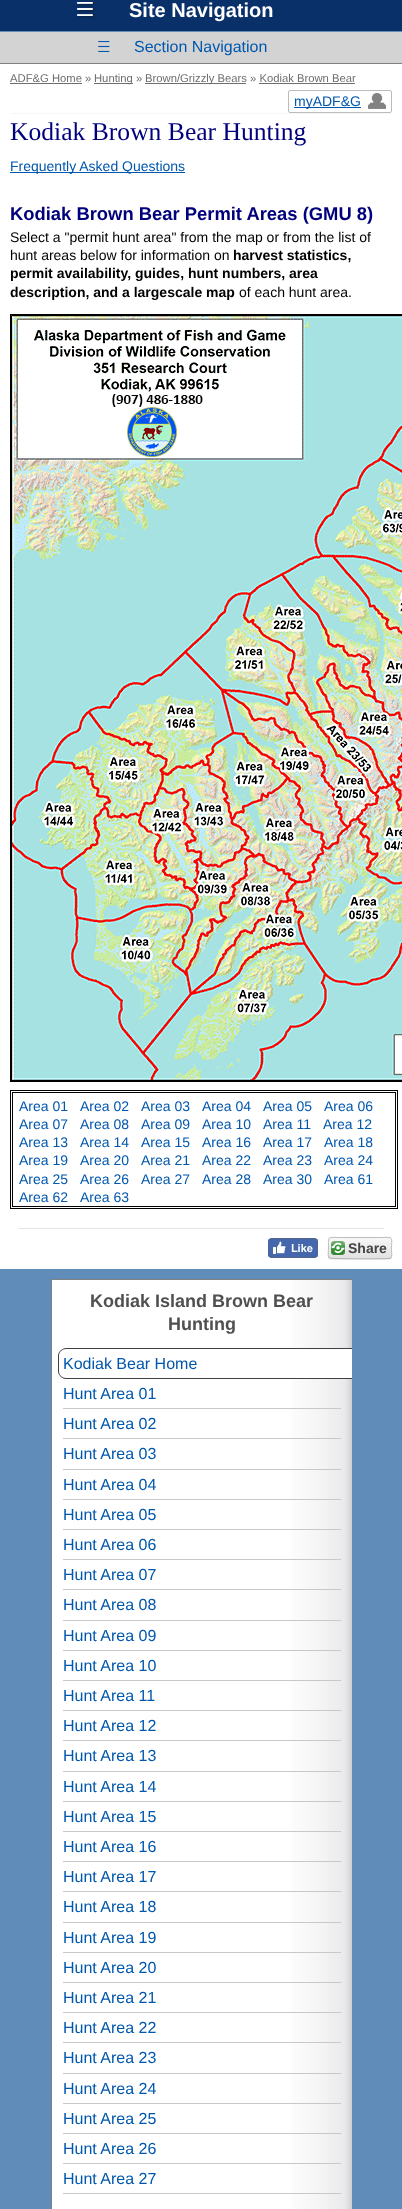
<svg xmlns="http://www.w3.org/2000/svg" width="402" height="2209" viewBox="0 0 402 2209">
  <defs>
    <filter id="blur1" x="-50%" y="-200%" width="200%" height="500%"><feGaussianBlur stdDeviation="0.5"/></filter>
    <clipPath id="clip1"><rect x="328" y="1237" width="64" height="22" rx="3"/></clipPath>
    <linearGradient id="g1" gradientUnits="userSpaceOnUse" x1="360" y1="1218" x2="360" y2="1238"><stop offset="0" stop-color="#f7f7f7"/><stop offset="1" stop-color="#e2e2e2"/></linearGradient>
    <linearGradient id="g2" gradientUnits="userSpaceOnUse" x1="360" y1="1238" x2="360" y2="1258"><stop offset="0" stop-color="#f7f7f7"/><stop offset="1" stop-color="#e2e2e2"/></linearGradient>
    <linearGradient id="g3" gradientUnits="userSpaceOnUse" x1="360" y1="1258" x2="360" y2="1278"><stop offset="0" stop-color="#f7f7f7"/><stop offset="1" stop-color="#e2e2e2"/></linearGradient>
  </defs>
  <rect width="100%" height="100%" fill="#0a306a"/>
  <image x="76" y="1" width="19" height="18" href="img1.png"/>
  <text x="129" y="17" font-family="Liberation Sans" font-size="20" font-weight="bold" fill="#ffffff">Site Navigation</text>
  <rect x="0" y="31" width="402" height="2178" fill="#608cb9"/>
  <rect x="0" y="63" width="402" height="1" fill="#808080"/>
  <rect x="0" y="32" width="402" height="31" fill="#d3d3d3"/>
  <image x="98" y="41" width="12" height="11" href="img2.png"/>
  <text x="134" y="52" font-family="Liberation Sans" font-size="16" fill="#0057ae">Section Navigation</text>
  <rect x="0" y="64" width="402" height="1205" fill="#ffffff"/>
  <rect x="10" y="113" width="382" height="1" fill="#f3f7f9"/>
  <text x="10" y="82" font-family="Liberation Sans" font-size="11.25" fill="#6e6e6e">ADF&amp;G Home »</text>
  <rect x="10" y="83" width="72" height="1" fill="#6e6e6e"/>
  <rect x="94" y="83" width="39" height="1" fill="#6e6e6e"/>
  <text x="94" y="82" font-family="Liberation Sans" font-size="11.25" fill="#6e6e6e">Hunting »</text>
  <rect x="145" y="83" width="101" height="1" fill="#6e6e6e"/>
  <text x="145" y="82" font-family="Liberation Sans" font-size="11.25" fill="#6e6e6e">Brown/Grizzly Bears » Kodiak Brown Bear</text>
  <rect x="259" y="83" width="96" height="1" fill="#6e6e6e"/>
  <rect x="288.5" y="90.5" width="103" height="22" rx="1.5" fill="none" stroke="#bcbcbc"/>
  <rect x="294" y="107" width="67" height="1" fill="#0057ae"/>
  <text x="294" y="106" font-family="Liberation Sans" font-size="14" fill="#0057ae">myADF&amp;G</text>
  <image x="368" y="93" width="18" height="16" href="img3.png"/>
  <text x="10" y="140" font-family="Liberation Serif" font-size="25.6" fill="#00007c">Kodiak Brown Bear Hunting</text>
  <rect x="10" y="172" width="175" height="1" fill="#0057ae"/>
  <text x="10" y="171" font-family="Liberation Sans" font-size="14" fill="#0057ae">Frequently Asked Questions</text>
  <text x="10" y="220" font-family="Liberation Sans" font-size="18.4" font-weight="bold" fill="#00007c">Kodiak Brown Bear Permit Areas (GMU 8)</text>
  <text x="10" y="242" font-family="Liberation Sans" font-size="14" fill="#000000">Select a "permit hunt area" from the map or from the list of</text>
  <text x="10" y="260" font-family="Liberation Sans" font-size="14" fill="#000000">hunt areas below for information on</text>
  <text x="233" y="260" font-family="Liberation Sans" font-size="14" font-weight="bold" fill="#000000">harvest statistics,</text>
  <text x="10" y="278" font-family="Liberation Sans" font-size="14" font-weight="bold" fill="#000000">permit availability, guides, hunt numbers, area</text>
  <text x="10" y="297" font-family="Liberation Sans" font-size="14" font-weight="bold" fill="#000000">description, and a largescale map</text>
  <text x="239" y="297" font-family="Liberation Sans" font-size="14" fill="#000000">of each hunt area.</text>
  <rect x="10.5" y="314.5" width="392" height="767" fill="none" stroke="#000000"/>
  <image x="11" y="315" width="391" height="766" href="img4.png"/>
  <rect x="10.5" y="1090.5" width="387" height="118" fill="none" stroke="#000000"/>
  <rect x="12.5" y="1092.5" width="383" height="114" fill="none" stroke="#000000"/>
  <text x="19" y="1111" font-family="Liberation Sans" font-size="14" fill="#0057ae">Area 01</text>
  <text x="80" y="1111" font-family="Liberation Sans" font-size="14" fill="#0057ae">Area 02</text>
  <text x="141" y="1111" font-family="Liberation Sans" font-size="14" fill="#0057ae">Area 03</text>
  <text x="202" y="1111" font-family="Liberation Sans" font-size="14" fill="#0057ae">Area 04</text>
  <text x="263" y="1111" font-family="Liberation Sans" font-size="14" fill="#0057ae">Area 05</text>
  <text x="324" y="1111" font-family="Liberation Sans" font-size="14" fill="#0057ae">Area 06</text>
  <text x="19" y="1129" font-family="Liberation Sans" font-size="14" fill="#0057ae">Area 07</text>
  <text x="80" y="1129" font-family="Liberation Sans" font-size="14" fill="#0057ae">Area 08</text>
  <text x="141" y="1129" font-family="Liberation Sans" font-size="14" fill="#0057ae">Area 09</text>
  <text x="202" y="1129" font-family="Liberation Sans" font-size="14" fill="#0057ae">Area 10</text>
  <text x="263" y="1129" font-family="Liberation Sans" font-size="14" fill="#0057ae">Area 11</text>
  <text x="323" y="1129" font-family="Liberation Sans" font-size="14" fill="#0057ae">Area 12</text>
  <text x="19" y="1147" font-family="Liberation Sans" font-size="14" fill="#0057ae">Area 13</text>
  <text x="80" y="1147" font-family="Liberation Sans" font-size="14" fill="#0057ae">Area 14</text>
  <text x="141" y="1147" font-family="Liberation Sans" font-size="14" fill="#0057ae">Area 15</text>
  <text x="202" y="1147" font-family="Liberation Sans" font-size="14" fill="#0057ae">Area 16</text>
  <text x="263" y="1147" font-family="Liberation Sans" font-size="14" fill="#0057ae">Area 17</text>
  <text x="324" y="1147" font-family="Liberation Sans" font-size="14" fill="#0057ae">Area 18</text>
  <text x="19" y="1165" font-family="Liberation Sans" font-size="14" fill="#0057ae">Area 19</text>
  <text x="80" y="1165" font-family="Liberation Sans" font-size="14" fill="#0057ae">Area 20</text>
  <text x="141" y="1165" font-family="Liberation Sans" font-size="14" fill="#0057ae">Area 21</text>
  <text x="202" y="1165" font-family="Liberation Sans" font-size="14" fill="#0057ae">Area 22</text>
  <text x="263" y="1165" font-family="Liberation Sans" font-size="14" fill="#0057ae">Area 23</text>
  <text x="324" y="1165" font-family="Liberation Sans" font-size="14" fill="#0057ae">Area 24</text>
  <text x="19" y="1184" font-family="Liberation Sans" font-size="14" fill="#0057ae">Area 25</text>
  <text x="80" y="1184" font-family="Liberation Sans" font-size="14" fill="#0057ae">Area 26</text>
  <text x="141" y="1184" font-family="Liberation Sans" font-size="14" fill="#0057ae">Area 27</text>
  <text x="202" y="1184" font-family="Liberation Sans" font-size="14" fill="#0057ae">Area 28</text>
  <text x="263" y="1184" font-family="Liberation Sans" font-size="14" fill="#0057ae">Area 30</text>
  <text x="324" y="1184" font-family="Liberation Sans" font-size="14" fill="#0057ae">Area 61</text>
  <text x="19" y="1202" font-family="Liberation Sans" font-size="14" fill="#0057ae">Area 62</text>
  <text x="80" y="1202" font-family="Liberation Sans" font-size="14" fill="#0057ae">Area 63</text>
  <rect x="18" y="1228" width="366" height="1" fill="#e6e6e6"/>
  <image x="268" y="1238" width="50" height="20" href="img5.png"/>
  <rect x="328" y="1238" width="64" height="22" rx="3" fill="#000000" fill-opacity="0.05" filter="url(#blur1)"/>
  <g clip-path="url(#clip1)">
    <rect x="328" y="1237" width="64" height="1" fill="url(#g1)"/>
    <rect x="328" y="1238" width="64" height="20" fill="url(#g2)"/>
    <rect x="328" y="1258" width="64" height="1" fill="url(#g3)"/>
  </g>
  <path d="M391 1258L389 1258.5C384 1259 330.5 1259 329.5 1258H329" fill="none" stroke="#acacac"/>
  <path d="M329 1258C327.5 1256 328.5 1250 328.5 1248C328.5 1235.5 327 1237.5 340.5 1237.5H379.5C394.5 1237.5 391.5 1235.5 391.5 1250.5C391.5 1252.5 392.5 1256 391 1258" fill="none" stroke="#b3b3b3" stroke-opacity="0.8"/>
  <image x="331" y="1241" width="14" height="14" href="img6.png"/>
  <text x="348" y="1253" font-family="Liberation Sans" font-size="14" font-weight="bold" fill="#444444">Share</text>
  <rect x="52" y="1280" width="239" height="929" fill="#ffffff"/>
  <image x="291" y="1280" width="61" height="929" href="img7.png"/>
  <rect x="51" y="1279" width="301" height="1" fill="#808080"/>
  <rect x="51" y="1279" width="1" height="930" fill="#808080"/>
  <text x="90" y="1307" font-family="Liberation Sans" font-size="18" font-weight="bold" fill="#505050">Kodiak Island Brown Bear</text>
  <text x="168" y="1330" font-family="Liberation Sans" font-size="18" font-weight="bold" fill="#505050">Hunting</text>
  <path d="M66 1349H352V1378H66C62 1378 59 1375 59 1371V1356C59 1352 62 1349 66 1349Z" fill="#ffffff"/>
  <rect x="63" y="1378" width="3" height="1" fill="#c7c8ca"/>
  <path d="M66 1348H352V1379H66C62 1379 58 1375 58 1371V1356C58 1352 62 1348 66 1348ZM66 1349H352V1378H66C62 1378 59 1375 59 1371V1356C59 1352 62 1349 66 1349Z" fill="#404040" fill-rule="evenodd"/>
  <text x="63" y="1369" font-family="Liberation Sans" font-size="16" fill="#0057ae">Kodiak Bear Home</text>
  <text x="63" y="1399" font-family="Liberation Sans" font-size="16" fill="#0057ae">Hunt Area 01</text>
  <rect x="63" y="1408" width="278" height="1" fill="#c7c8ca"/>
  <text x="63" y="1429" font-family="Liberation Sans" font-size="16" fill="#0057ae">Hunt Area 02</text>
  <rect x="63" y="1438" width="278" height="1" fill="#c7c8ca"/>
  <text x="63" y="1459" font-family="Liberation Sans" font-size="16" fill="#0057ae">Hunt Area 03</text>
  <rect x="63" y="1469" width="278" height="1" fill="#c7c8ca"/>
  <text x="63" y="1490" font-family="Liberation Sans" font-size="16" fill="#0057ae">Hunt Area 04</text>
  <rect x="63" y="1499" width="278" height="1" fill="#c7c8ca"/>
  <text x="63" y="1520" font-family="Liberation Sans" font-size="16" fill="#0057ae">Hunt Area 05</text>
  <rect x="63" y="1529" width="278" height="1" fill="#c7c8ca"/>
  <text x="63" y="1550" font-family="Liberation Sans" font-size="16" fill="#0057ae">Hunt Area 06</text>
  <rect x="63" y="1559" width="278" height="1" fill="#c7c8ca"/>
  <text x="63" y="1580" font-family="Liberation Sans" font-size="16" fill="#0057ae">Hunt Area 07</text>
  <rect x="63" y="1589" width="278" height="1" fill="#c7c8ca"/>
  <text x="63" y="1610" font-family="Liberation Sans" font-size="16" fill="#0057ae">Hunt Area 08</text>
  <rect x="63" y="1620" width="278" height="1" fill="#c7c8ca"/>
  <text x="63" y="1641" font-family="Liberation Sans" font-size="16" fill="#0057ae">Hunt Area 09</text>
  <rect x="63" y="1650" width="278" height="1" fill="#c7c8ca"/>
  <text x="63" y="1671" font-family="Liberation Sans" font-size="16" fill="#0057ae">Hunt Area 10</text>
  <rect x="63" y="1680" width="278" height="1" fill="#c7c8ca"/>
  <text x="63" y="1701" font-family="Liberation Sans" font-size="16" fill="#0057ae">Hunt Area 11</text>
  <rect x="63" y="1710" width="278" height="1" fill="#c7c8ca"/>
  <text x="63" y="1731" font-family="Liberation Sans" font-size="16" fill="#0057ae">Hunt Area 12</text>
  <rect x="63" y="1740" width="278" height="1" fill="#c7c8ca"/>
  <text x="63" y="1761" font-family="Liberation Sans" font-size="16" fill="#0057ae">Hunt Area 13</text>
  <rect x="63" y="1771" width="278" height="1" fill="#c7c8ca"/>
  <text x="63" y="1792" font-family="Liberation Sans" font-size="16" fill="#0057ae">Hunt Area 14</text>
  <rect x="63" y="1801" width="278" height="1" fill="#c7c8ca"/>
  <text x="63" y="1822" font-family="Liberation Sans" font-size="16" fill="#0057ae">Hunt Area 15</text>
  <rect x="63" y="1831" width="278" height="1" fill="#c7c8ca"/>
  <text x="63" y="1852" font-family="Liberation Sans" font-size="16" fill="#0057ae">Hunt Area 16</text>
  <rect x="63" y="1861" width="278" height="1" fill="#c7c8ca"/>
  <text x="63" y="1882" font-family="Liberation Sans" font-size="16" fill="#0057ae">Hunt Area 17</text>
  <rect x="63" y="1891" width="278" height="1" fill="#c7c8ca"/>
  <text x="63" y="1912" font-family="Liberation Sans" font-size="16" fill="#0057ae">Hunt Area 18</text>
  <rect x="63" y="1922" width="278" height="1" fill="#c7c8ca"/>
  <text x="63" y="1943" font-family="Liberation Sans" font-size="16" fill="#0057ae">Hunt Area 19</text>
  <rect x="63" y="1952" width="278" height="1" fill="#c7c8ca"/>
  <text x="63" y="1973" font-family="Liberation Sans" font-size="16" fill="#0057ae">Hunt Area 20</text>
  <rect x="63" y="1982" width="278" height="1" fill="#c7c8ca"/>
  <text x="63" y="2003" font-family="Liberation Sans" font-size="16" fill="#0057ae">Hunt Area 21</text>
  <rect x="63" y="2012" width="278" height="1" fill="#c7c8ca"/>
  <text x="63" y="2033" font-family="Liberation Sans" font-size="16" fill="#0057ae">Hunt Area 22</text>
  <rect x="63" y="2042" width="278" height="1" fill="#c7c8ca"/>
  <text x="63" y="2063" font-family="Liberation Sans" font-size="16" fill="#0057ae">Hunt Area 23</text>
  <rect x="63" y="2073" width="278" height="1" fill="#c7c8ca"/>
  <text x="63" y="2094" font-family="Liberation Sans" font-size="16" fill="#0057ae">Hunt Area 24</text>
  <rect x="63" y="2103" width="278" height="1" fill="#c7c8ca"/>
  <text x="63" y="2124" font-family="Liberation Sans" font-size="16" fill="#0057ae">Hunt Area 25</text>
  <rect x="63" y="2133" width="278" height="1" fill="#c7c8ca"/>
  <text x="63" y="2154" font-family="Liberation Sans" font-size="16" fill="#0057ae">Hunt Area 26</text>
  <rect x="63" y="2163" width="278" height="1" fill="#c7c8ca"/>
  <text x="63" y="2184" font-family="Liberation Sans" font-size="16" fill="#0057ae">Hunt Area 27</text>
  <rect x="63" y="2193" width="278" height="1" fill="#c7c8ca"/>
</svg>
